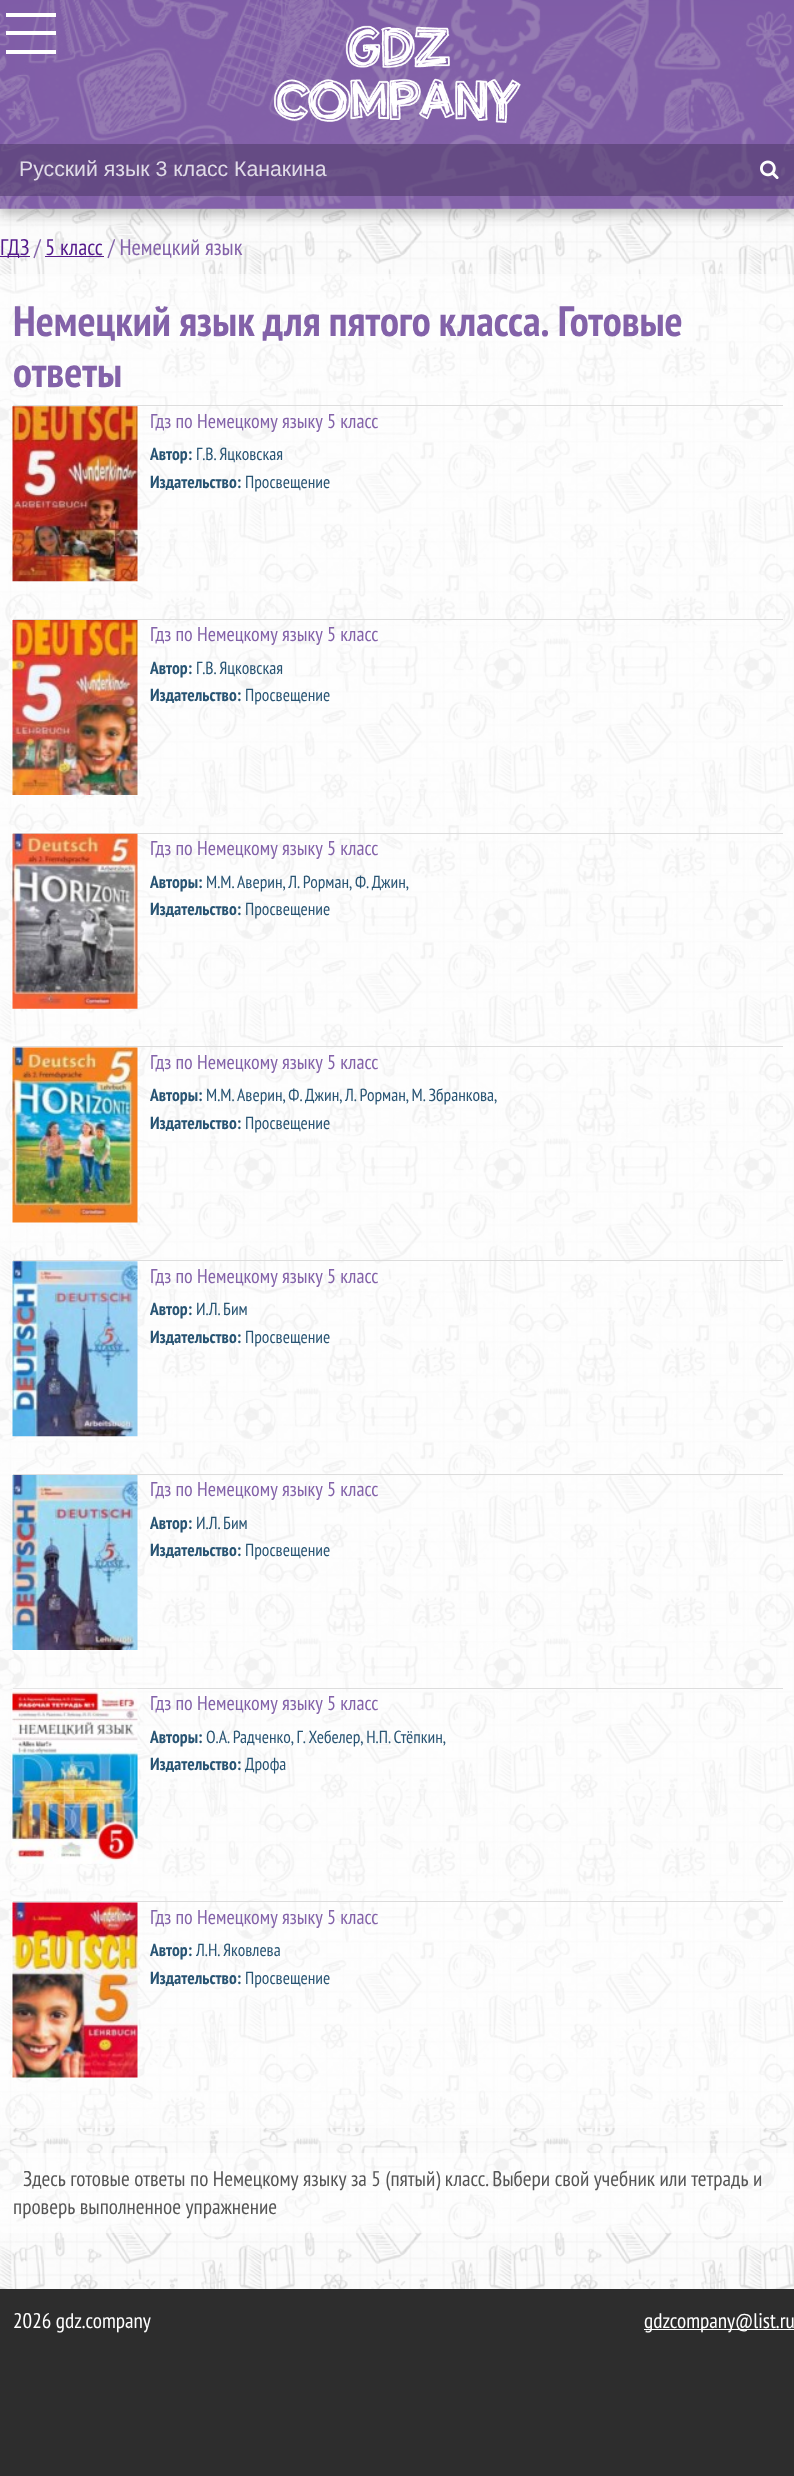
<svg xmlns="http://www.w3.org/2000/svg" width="794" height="2476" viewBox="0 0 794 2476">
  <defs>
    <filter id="blur1" x="-50%" y="-200%" width="200%" height="500%"><feGaussianBlur stdDeviation="6"/></filter>
  </defs>
  <rect width="100%" height="100%" fill="#ffffff"/>
  <image x="0" y="208" width="794" height="2081" href="img1.png"/>
  <rect x="0" y="6" width="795" height="209" fill="#323232" fill-opacity="0.3" filter="url(#blur1)"/>
  <image x="0" y="0" width="794" height="209" href="img2.png"/>
  <rect x="6" y="13" width="50" height="4" fill="#ffffff"/>
  <rect x="6" y="31" width="50" height="4" fill="#ffffff"/>
  <rect x="6" y="50" width="50" height="4" fill="#ffffff"/>
  <image x="273" y="25" width="248" height="98" href="img3.png"/>
  <rect x="0" y="144" width="794" height="52" fill="#513c6d" fill-opacity="0.6"/>
  <text x="19" y="176" font-family="Liberation Sans" font-size="21.25" fill="#e0dbe7">Русский язык 3 класс Канакина</text>
  <image x="760" y="160" width="19" height="20" href="img4.png"/>
  <rect x="0" y="256" width="30" height="1" fill="#551a8b"/>
  <text x="0" y="255" font-family="PT Sans Narrow" font-size="22.5" fill="#551a8b">ГДЗ</text>
  <text x="34" y="255" font-family="PT Sans Narrow" font-size="22.5" fill="#8362a9">/</text>
  <text x="45" y="255" font-family="PT Sans Narrow" font-size="22.5" fill="#551a8b">5 класс</text>
  <rect x="45" y="256" width="59" height="1" fill="#551a8b"/>
  <text x="108" y="255" font-family="PT Sans Narrow" font-size="22.5" fill="#8362a9">/ Немецкий язык</text>
  <rect x="0" y="274" width="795" height="1854" rx="4" fill="#ffffff" fill-opacity="0.6"/>
  <text x="13" y="336" word-spacing="-0.5" font-family="PT Sans Narrow" font-size="42.5" font-weight="bold" fill="#8362a9">Немецкий язык для пятого класса. Готовые</text>
  <text x="13" y="387" font-family="PT Sans Narrow" font-size="42.5" font-weight="bold" fill="#8362a9">ответы</text>
  <rect x="13" y="405" width="770" height="1" fill="#dddddd"/>
  <image x="12" y="406" width="126" height="176" href="img5.png"/>
  <text x="150" y="428" font-family="PT Sans Narrow" font-size="20" fill="#8362a9">Гдз по Немецкому языку 5 класс</text>
  <text x="150" y="460" font-family="PT Sans Narrow" font-size="17.5" font-weight="bold" fill="#285473">Автор:</text>
  <text x="196" y="460" font-family="PT Sans Narrow" font-size="17.5" fill="#285473">Г.В. Яцковская</text>
  <text x="150" y="488" font-family="PT Sans Narrow" font-size="17.5" font-weight="bold" fill="#285473">Издательство:</text>
  <text x="245" y="488" font-family="PT Sans Narrow" font-size="17.5" fill="#285473">Просвещение</text>
  <rect x="13" y="619" width="770" height="1" fill="#dddddd"/>
  <image x="12" y="620" width="126" height="175" href="img6.png"/>
  <text x="150" y="641" font-family="PT Sans Narrow" font-size="20" fill="#8362a9">Гдз по Немецкому языку 5 класс</text>
  <text x="150" y="674" font-family="PT Sans Narrow" font-size="17.5" font-weight="bold" fill="#285473">Автор:</text>
  <text x="196" y="674" font-family="PT Sans Narrow" font-size="17.5" fill="#285473">Г.В. Яцковская</text>
  <text x="150" y="701" font-family="PT Sans Narrow" font-size="17.5" font-weight="bold" fill="#285473">Издательство:</text>
  <text x="245" y="701" font-family="PT Sans Narrow" font-size="17.5" fill="#285473">Просвещение</text>
  <rect x="13" y="833" width="770" height="1" fill="#dddddd"/>
  <image x="12" y="833" width="126" height="176" href="img7.png"/>
  <text x="150" y="855" font-family="PT Sans Narrow" font-size="20" fill="#8362a9">Гдз по Немецкому языку 5 класс</text>
  <text x="150" y="888" font-family="PT Sans Narrow" font-size="17.5" font-weight="bold" fill="#285473">Aвторы:</text>
  <text x="206" y="888" font-family="PT Sans Narrow" font-size="17.5" fill="#285473">М.М. Аверин, Л. Рорман, Ф. Джин,</text>
  <text x="150" y="915" font-family="PT Sans Narrow" font-size="17.5" font-weight="bold" fill="#285473">Издательство:</text>
  <text x="245" y="915" font-family="PT Sans Narrow" font-size="17.5" fill="#285473">Просвещение</text>
  <rect x="13" y="1046" width="770" height="1" fill="#dddddd"/>
  <image x="12" y="1047" width="126" height="176" href="img8.png"/>
  <text x="150" y="1069" font-family="PT Sans Narrow" font-size="20" fill="#8362a9">Гдз по Немецкому языку 5 класс</text>
  <text x="150" y="1101" font-family="PT Sans Narrow" font-size="17.5" font-weight="bold" fill="#285473">Aвторы:</text>
  <text x="206" y="1101" font-family="PT Sans Narrow" font-size="17.5" fill="#285473">М.М. Аверин, Ф. Джин, Л. Рорман, М. Збранкова,</text>
  <text x="150" y="1129" font-family="PT Sans Narrow" font-size="17.5" font-weight="bold" fill="#285473">Издательство:</text>
  <text x="245" y="1129" font-family="PT Sans Narrow" font-size="17.5" fill="#285473">Просвещение</text>
  <rect x="13" y="1260" width="770" height="1" fill="#dddddd"/>
  <image x="12" y="1261" width="126" height="176" href="img9.png"/>
  <text x="150" y="1283" font-family="PT Sans Narrow" font-size="20" fill="#8362a9">Гдз по Немецкому языку 5 класс</text>
  <text x="150" y="1315" font-family="PT Sans Narrow" font-size="17.5" font-weight="bold" fill="#285473">Автор:</text>
  <text x="196" y="1315" font-family="PT Sans Narrow" font-size="17.5" fill="#285473">И.Л. Бим</text>
  <text x="150" y="1343" font-family="PT Sans Narrow" font-size="17.5" font-weight="bold" fill="#285473">Издательство:</text>
  <text x="245" y="1343" font-family="PT Sans Narrow" font-size="17.5" fill="#285473">Просвещение</text>
  <rect x="13" y="1474" width="770" height="1" fill="#dddddd"/>
  <image x="12" y="1475" width="126" height="175" href="img10.png"/>
  <text x="150" y="1496" font-family="PT Sans Narrow" font-size="20" fill="#8362a9">Гдз по Немецкому языку 5 класс</text>
  <text x="150" y="1529" font-family="PT Sans Narrow" font-size="17.5" font-weight="bold" fill="#285473">Автор:</text>
  <text x="196" y="1529" font-family="PT Sans Narrow" font-size="17.5" fill="#285473">И.Л. Бим</text>
  <text x="150" y="1556" font-family="PT Sans Narrow" font-size="17.5" font-weight="bold" fill="#285473">Издательство:</text>
  <text x="245" y="1556" font-family="PT Sans Narrow" font-size="17.5" fill="#285473">Просвещение</text>
  <rect x="13" y="1688" width="770" height="1" fill="#dddddd"/>
  <image x="12" y="1688" width="126" height="176" href="img11.png"/>
  <text x="150" y="1710" font-family="PT Sans Narrow" font-size="20" fill="#8362a9">Гдз по Немецкому языку 5 класс</text>
  <text x="150" y="1743" font-family="PT Sans Narrow" font-size="17.5" font-weight="bold" fill="#285473">Aвторы:</text>
  <text x="206" y="1743" font-family="PT Sans Narrow" font-size="17.5" fill="#285473">О.А. Радченко, Г. Хебелер, Н.П. Стёпкин,</text>
  <text x="150" y="1770" font-family="PT Sans Narrow" font-size="17.5" font-weight="bold" fill="#285473">Издательство:</text>
  <text x="245" y="1770" font-family="PT Sans Narrow" font-size="17.5" fill="#285473">Дрофа</text>
  <rect x="13" y="1901" width="770" height="1" fill="#dddddd"/>
  <image x="12" y="1902" width="126" height="176" href="img12.png"/>
  <text x="150" y="1924" font-family="PT Sans Narrow" font-size="20" fill="#8362a9">Гдз по Немецкому языку 5 класс</text>
  <text x="150" y="1956" font-family="PT Sans Narrow" font-size="17.5" font-weight="bold" fill="#285473">Автор:</text>
  <text x="196" y="1956" font-family="PT Sans Narrow" font-size="17.5" fill="#285473">Л.Н. Яковлева</text>
  <text x="150" y="1984" font-family="PT Sans Narrow" font-size="17.5" font-weight="bold" fill="#285473">Издательство:</text>
  <text x="245" y="1984" font-family="PT Sans Narrow" font-size="17.5" fill="#285473">Просвещение</text>
  <rect x="0" y="2153" width="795" height="80" rx="4" fill="#ffffff" fill-opacity="0.6"/>
  <text x="23" y="2186" font-family="PT Sans Narrow" font-size="21.25" fill="#555555">Здесь готовые ответы по Немецкому языку за 5 (пятый) класс. Выбери свой учебник или тетрадь и</text>
  <text x="13" y="2214" font-family="PT Sans Narrow" font-size="21.25" fill="#555555">проверь выполненное упражнение</text>
  <rect x="0" y="2289" width="794" height="187" fill="#2d2d2d"/>
  <text x="13" y="2328" font-family="PT Sans Narrow" font-size="21.25" fill="#ffffff">2026 gdz.company</text>
  <rect x="644" y="2329" width="150" height="1" fill="#ffffff"/>
  <text x="644" y="2328" font-family="PT Sans Narrow" font-size="21.25" fill="#ffffff">gdzcompany@list.ru</text>
</svg>
